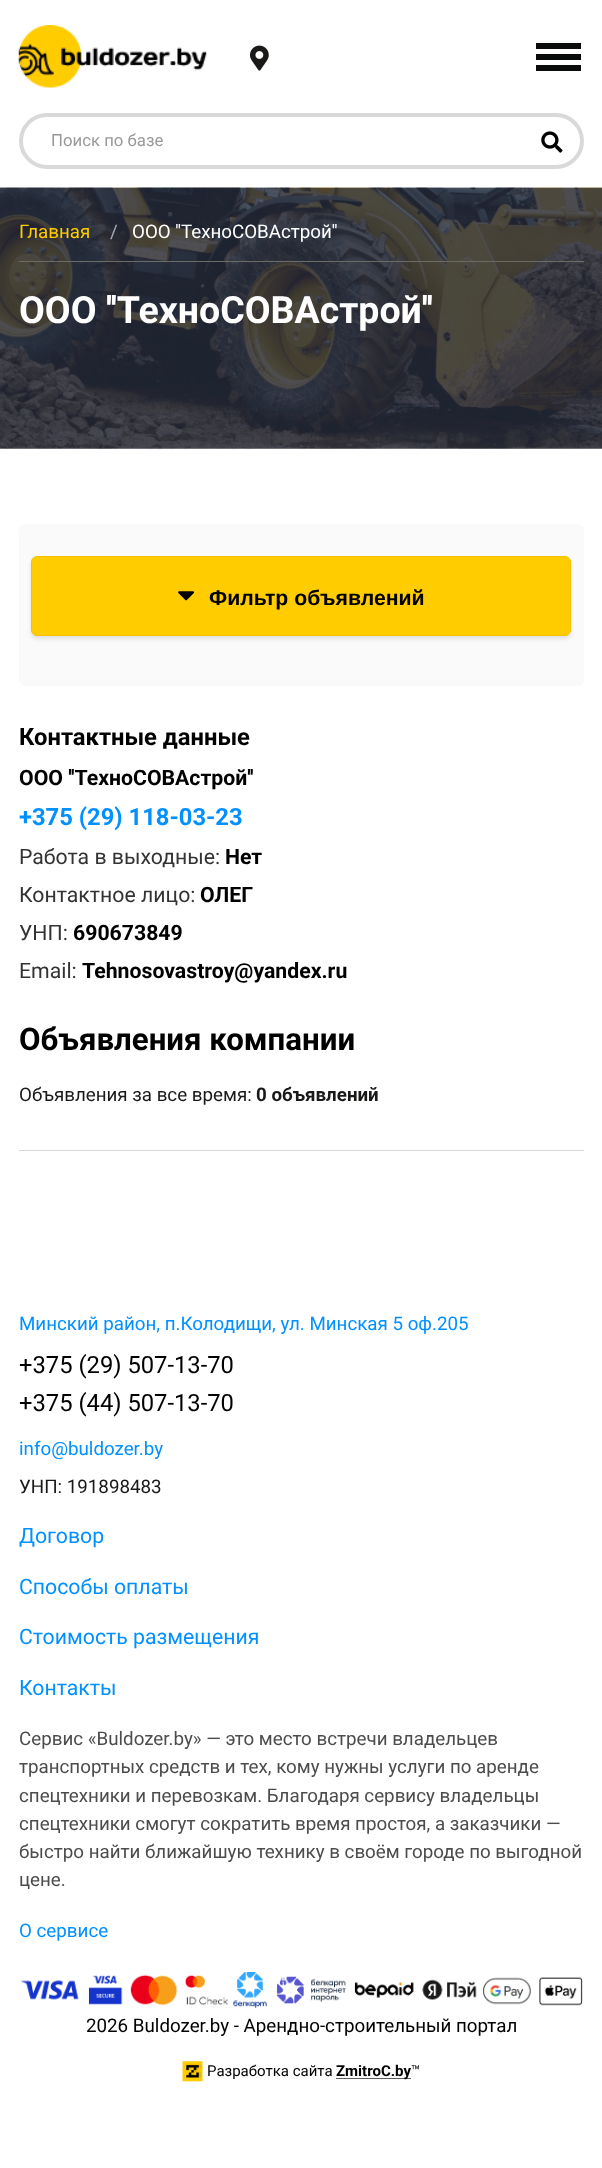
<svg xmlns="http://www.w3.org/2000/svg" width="602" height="2168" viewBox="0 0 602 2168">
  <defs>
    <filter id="blur1" x="-50%" y="-200%" width="200%" height="500%"><feGaussianBlur stdDeviation="2"/></filter>
  </defs>
  <rect width="100%" height="100%" fill="#ffffff"/>
  <image x="18" y="25" width="189" height="63" href="img1.png"/>
  <image x="250" y="45" width="19" height="26" href="img2.png"/>
  <rect x="536" y="43" width="45" height="6" fill="#0a0c0b"/>
  <rect x="536" y="54" width="45" height="6" fill="#0a0c0b"/>
  <rect x="536" y="65" width="45" height="6" fill="#0a0c0b"/>
  <rect x="21" y="115" width="561" height="52" rx="26" fill="none" stroke="#d9d9d9" stroke-width="4"/>
  <text x="51" y="146" font-family="Roboto" font-size="16.75" fill="#999999">Поиск по базе</text>
  <image x="541" y="131" width="22" height="22" href="img3.png"/>
  <image x="0" y="187" width="602" height="262" href="img4.png"/>
  <rect x="19" y="261" width="565" height="1" fill="#6d6b66"/>
  <text x="19" y="238" font-family="Roboto" font-size="18.75" fill="#ffcc00">Главная</text>
  <text x="110" y="238" font-family="Roboto" font-size="18.75" fill="#a4aab8">/</text>
  <text x="132" y="238" font-family="Roboto" font-size="18.75" fill="#ffffff">ООО ''ТехноСОВАстрой''</text>
  <text x="19" y="323" font-family="Roboto" font-size="37.5" font-weight="bold" fill="#ffffff">ООО ''ТехноСОВАстрой''</text>
  <rect x="19" y="524" width="565" height="162" rx="6" fill="#fafafa"/>
  <rect x="31" y="559" width="540" height="80" rx="6" fill="#000000" fill-opacity="0.1" filter="url(#blur1)"/>
  <rect x="31.5" y="556.5" width="539" height="79" rx="5.5" fill="#ffcc00" stroke="#f2c200"/>
  <image x="178" y="591" width="17" height="10" href="img5.png"/>
  <text x="209" y="605" font-family="Liberation Sans" font-size="21.25" font-weight="bold" fill="#000000">Фильтр объявлений</text>
  <text x="19" y="745" font-family="Roboto" font-size="23.75" font-weight="bold" fill="#000000">Контактные данные</text>
  <text x="19" y="785" font-family="Roboto" font-size="21.25" font-weight="bold" fill="#000000">ООО ''ТехноСОВАстрой''</text>
  <text x="19" y="825" font-family="Roboto" font-size="23.75" font-weight="bold" fill="#0090ff">+375 (29) 118-03-23</text>
  <text x="19" y="864" font-family="Roboto" font-size="21.25" fill="#333333">Работа в выходные:</text>
  <text x="225" y="864" font-family="Roboto" font-size="21.25" font-weight="bold" fill="#000000">Нет</text>
  <text x="19" y="902" font-family="Roboto" font-size="21.25" fill="#333333">Контактное лицо:</text>
  <text x="200" y="902" font-family="Roboto" font-size="21.25" font-weight="bold" fill="#000000">ОЛЕГ</text>
  <text x="19" y="940" font-family="Roboto" font-size="21.25" fill="#333333">УНП:</text>
  <text x="73" y="940" font-family="Roboto" font-size="21.25" font-weight="bold" fill="#000000">690673849</text>
  <text x="19" y="978" font-family="Roboto" font-size="21.25" fill="#333333">Email:</text>
  <text x="82" y="978" font-family="Roboto" font-size="21.25" font-weight="bold" fill="#000000">Tehnosovastroy@yandex.ru</text>
  <text x="19" y="1050" font-family="Roboto" font-size="31.25" font-weight="bold" fill="#000000">Объявления компании</text>
  <text x="19" y="1101" font-family="Roboto" font-size="18.75" fill="#1a1918">Объявления за все время:</text>
  <text x="256" y="1101" font-family="Roboto" font-size="18.75" font-weight="bold" fill="#1a1918">0 объявлений</text>
  <rect x="19" y="1150" width="565" height="1" fill="#d9d9d9"/>
  <text x="19" y="1330" font-family="Roboto" font-size="18.75" fill="#0090ff">Минский район, п.Колодищи, ул. Минская 5 оф.205</text>
  <text x="19" y="1373" font-family="Roboto" font-size="23.75" fill="#000000">+375 (29) 507-13-70</text>
  <text x="19" y="1411" font-family="Roboto" font-size="23.75" fill="#000000">+375 (44) 507-13-70</text>
  <text x="19" y="1455" font-family="Roboto" font-size="18.75" fill="#0090ff">info@buldozer.by</text>
  <text x="19" y="1493" font-family="Roboto" font-size="18.75" fill="#1a1918">УНП: 191898483</text>
  <text x="19" y="1543" font-family="Roboto" font-size="21.25" fill="#0090ff">Договор</text>
  <text x="19" y="1594" font-family="Roboto" font-size="21.25" fill="#0090ff">Способы оплаты</text>
  <text x="19" y="1644" font-family="Roboto" font-size="21.25" fill="#0090ff">Стоимость размещения</text>
  <text x="19" y="1695" font-family="Roboto" font-size="21.25" fill="#0090ff">Контакты</text>
  <text x="19" y="1745" font-family="Roboto" font-size="18.75" fill="#4c4c4c">Сервис «Buldozer.by» — это место встречи владельцев</text>
  <text x="19" y="1773" font-family="Roboto" font-size="18.75" fill="#4c4c4c">транспортных средств и тех, кому нужны услуги по аренде</text>
  <text x="19" y="1802" font-family="Roboto" font-size="18.75" fill="#4c4c4c">спецтехники и перевозкам. Благодаря сервису владельцы</text>
  <text x="19" y="1830" font-family="Roboto" font-size="18.75" fill="#4c4c4c">спецтехники смогут сократить время простоя, а заказчики —</text>
  <text x="19" y="1858" font-family="Roboto" font-size="18.75" fill="#4c4c4c">быстро найти ближайшую технику в своём городе по выгодной</text>
  <text x="19" y="1886" font-family="Roboto" font-size="18.75" fill="#4c4c4c">цене.</text>
  <text x="19" y="1937" font-family="Roboto" font-size="18.75" fill="#0090ff">О сервисе</text>
  <image x="20" y="1972" width="563" height="37" href="img6.png"/>
  <text x="86" y="2032" font-family="Roboto" font-size="18.75" fill="#000000">2026 Buldozer.by - Арендно-строительный портал</text>
  <image x="182" y="2061" width="21" height="21" href="img7.png"/>
  <text x="207" y="2076" font-family="Roboto" font-size="15" fill="#000000">Разработка сайта</text>
  <rect x="336" y="2078" width="75" height="1" fill="#5f5f5f"/>
  <text x="336" y="2076" font-family="Roboto" font-size="15" font-weight="bold" fill="#000000">ZmitroC.by</text>
  <text x="411" y="2076" font-family="Roboto" font-size="15" fill="#000000">™</text>
</svg>
